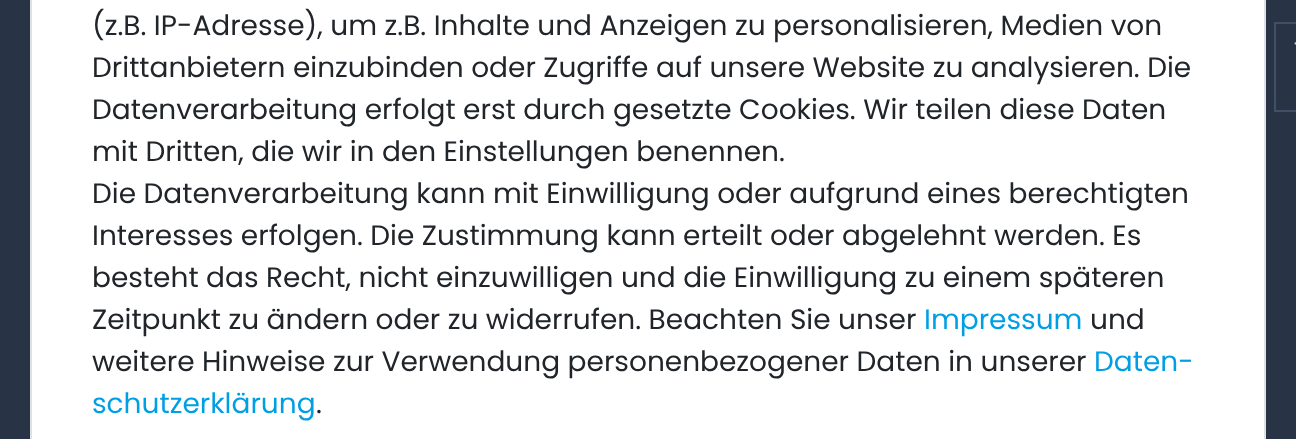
<svg xmlns="http://www.w3.org/2000/svg" width="1296" height="439" viewBox="0 0 1296 439">
  <rect width="100%" height="100%" fill="#283346"/>
  <rect x="31" y="-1" width="1234" height="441" fill="#ffffff" stroke="#dee2e6" stroke-width="2"/>
  <text x="92" y="35" font-family="Poppins" font-size="28" fill="#212529">(z.B. IP-Adresse), um z.B. Inhalte und Anzeigen zu personalisieren, Medien von</text>
  <text x="92" y="77" font-family="Poppins" font-size="28" fill="#212529">Drittanbietern einzubinden oder Zugriffe auf unsere Website zu analysieren. Die</text>
  <text x="92" y="119" font-family="Poppins" font-size="28" fill="#212529">Datenverarbeitung erfolgt erst durch gesetzte Cookies. Wir teilen diese Daten</text>
  <text x="92" y="161" font-family="Poppins" font-size="28" fill="#212529">mit Dritten, die wir in den Einstellungen benennen.</text>
  <text x="92" y="203" font-family="Poppins" font-size="28" fill="#212529">Die Datenverarbeitung kann mit Einwilligung oder aufgrund eines berechtigten</text>
  <text x="92" y="245" font-family="Poppins" font-size="28" fill="#212529">Interesses erfolgen. Die Zustimmung kann erteilt oder abgelehnt werden. Es</text>
  <text x="92" y="287" font-family="Poppins" font-size="28" fill="#212529">besteht das Recht, nicht einzuwilligen und die Einwilligung zu einem späteren</text>
  <text x="92" y="329" font-family="Poppins" font-size="28" fill="#212529">Zeitpunkt zu ändern oder zu widerrufen. Beachten Sie unser</text>
  <text x="924" y="329" font-family="Poppins" font-size="28" fill="#009fe3">Impressum</text>
  <text x="1090" y="329" font-family="Poppins" font-size="28" fill="#212529">und</text>
  <text x="92" y="371" font-family="Poppins" font-size="28" fill="#212529">weitere Hinweise zur Verwendung personenbezogener Daten in unserer</text>
  <text x="1094" y="371" font-family="Poppins" font-size="28" fill="#009fe3">Daten-</text>
  <text x="92" y="413" font-family="Poppins" font-size="28" fill="#009fe3">schutzerklärung</text>
  <text x="316" y="413" font-family="Poppins" font-size="28" fill="#212529">.</text>
  <rect x="1275" y="23" width="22" height="88" fill="none" stroke="#415067" stroke-width="2"/>
  <image x="1294" y="42" width="2" height="3" href="img1.png"/>
</svg>
